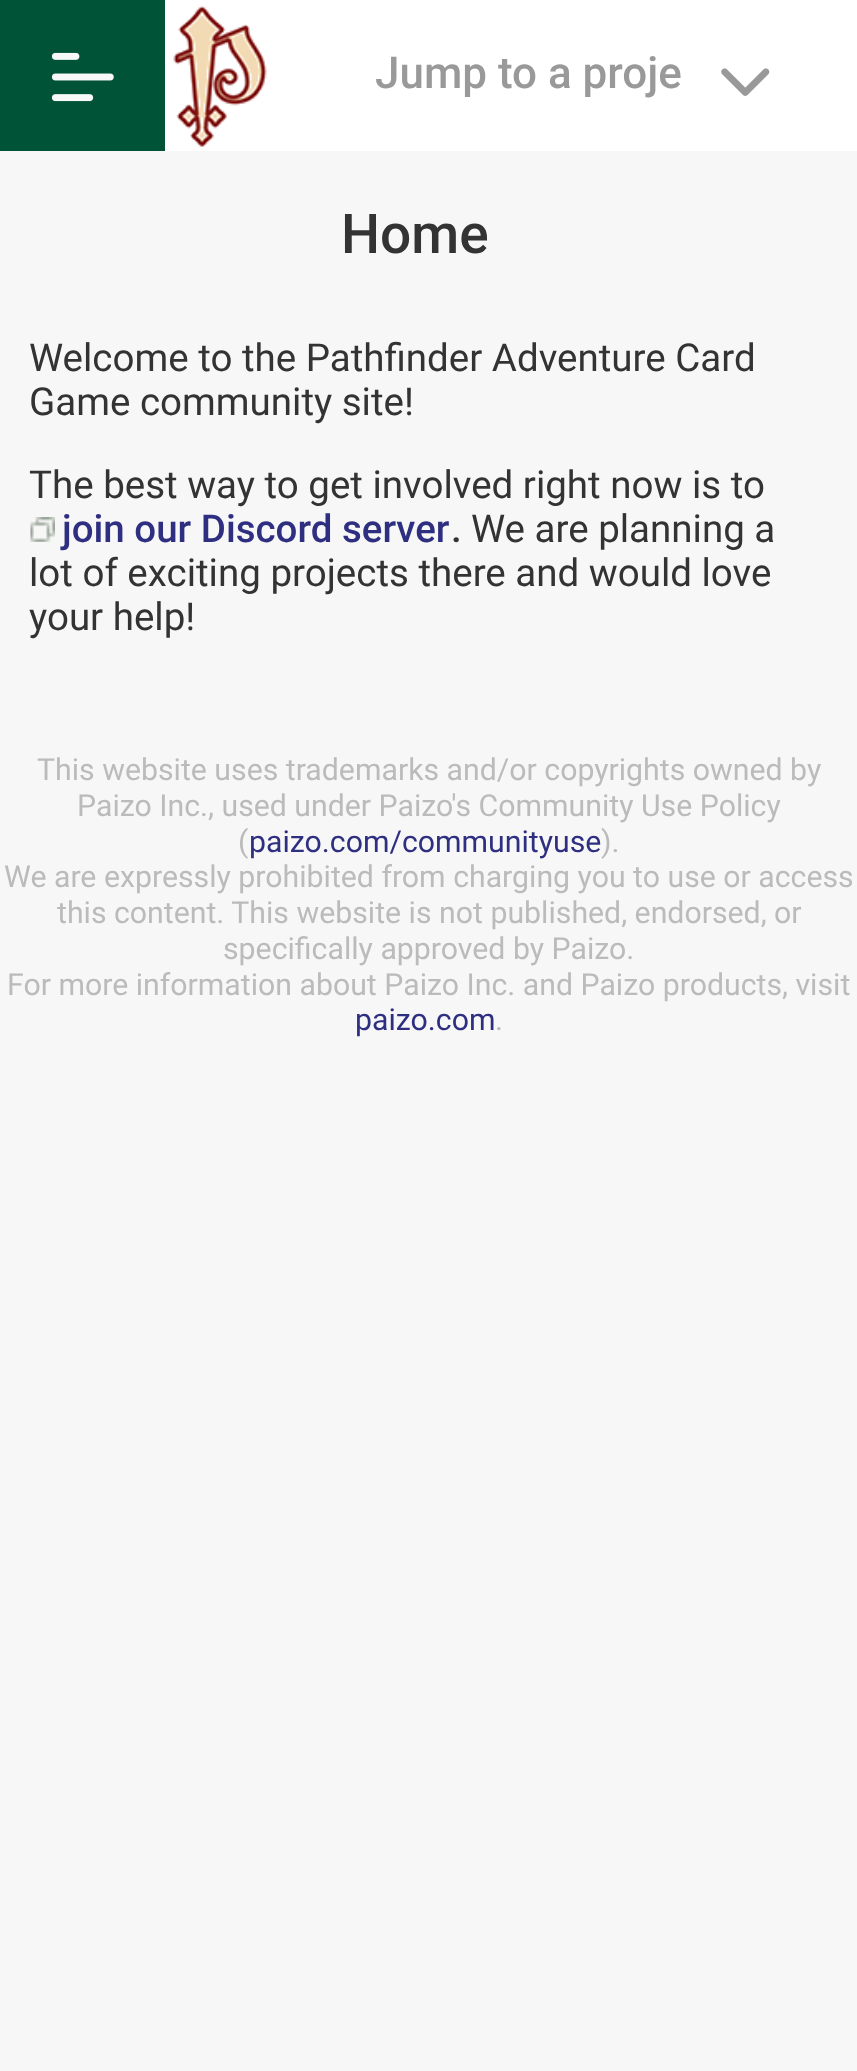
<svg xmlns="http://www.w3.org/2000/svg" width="857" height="2071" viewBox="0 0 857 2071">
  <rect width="100%" height="100%" fill="#f7f7f7"/>
  <rect x="165" y="0" width="692" height="151" fill="#ffffff"/>
  <image x="173" y="5" width="94" height="142" href="img1.png"/>
  <rect x="0" y="0" width="165" height="151" fill="#005336"/>
  <image x="51" y="52" width="63" height="50" href="img2.png"/>
  <text x="375" y="88" font-family="Roboto" font-size="44" font-weight="500" fill="#999999">Jump to a proje</text>
  <image x="721" y="68" width="49" height="28" href="img3.png"/>
  <text x="341" y="253" font-family="Roboto" font-size="55" font-weight="500" fill="#333333">Home</text>
  <text x="29" y="371" font-family="Roboto" font-size="38.5" fill="#333333">Welcome to the Pathfinder Adventure Card</text>
  <text x="29" y="415" font-family="Roboto" font-size="38.5" fill="#333333">Game community site!</text>
  <text x="29" y="498" font-family="Roboto" font-size="38.5" fill="#333333">The best way to get involved right now is to</text>
  <image x="30" y="517" width="25" height="25" href="img4.png"/>
  <text x="62" y="542" font-family="Roboto" font-size="38.5" font-weight="500" fill="#2f2f81">join our Discord server</text>
  <text x="451" y="542" font-family="Roboto" font-size="38.5" font-weight="500" fill="#333333">.</text>
  <text x="471" y="542" font-family="Roboto" font-size="38.5" fill="#333333">We are planning a</text>
  <text x="29" y="586" font-family="Roboto" font-size="38.5" fill="#333333">lot of exciting projects there and would love</text>
  <text x="29" y="630" font-family="Roboto" font-size="38.5" fill="#333333">your help!</text>
  <text x="37" y="780" font-family="Roboto" font-size="30.25" fill="#bbbbbb">This website uses trademarks and/or copyrights owned by</text>
  <text x="77" y="816" font-family="Roboto" font-size="30.25" fill="#bbbbbb">Paizo Inc., used under Paizo's Community Use Policy</text>
  <text x="238" y="852" font-family="Roboto" font-size="30.25" fill="#bbbbbb">(</text>
  <text x="249" y="852" font-family="Roboto" font-size="30.25" fill="#2f2f81">paizo.com/communityuse</text>
  <text x="601" y="852" font-family="Roboto" font-size="30.25" fill="#bbbbbb">).</text>
  <text x="4" y="887" font-family="Roboto" font-size="30.25" fill="#bbbbbb">We are expressly prohibited from charging you to use or access</text>
  <text x="57" y="923" font-family="Roboto" font-size="30.25" fill="#bbbbbb">this content. This website is not published, endorsed, or</text>
  <text x="223" y="959" font-family="Roboto" font-size="30.25" fill="#bbbbbb">specifically approved by Paizo.</text>
  <text x="7" y="995" font-family="Roboto" font-size="30.25" fill="#bbbbbb">For more information about Paizo Inc. and Paizo products, visit</text>
  <text x="355" y="1030" font-family="Roboto" font-size="30.25" fill="#2f2f81">paizo.com</text>
  <text x="495" y="1030" font-family="Roboto" font-size="30.25" fill="#bbbbbb">.</text>
</svg>
